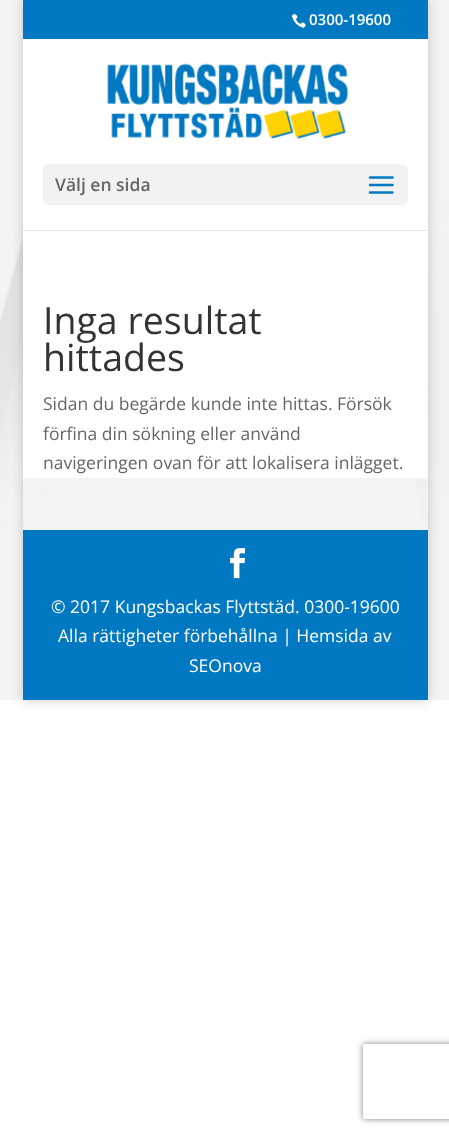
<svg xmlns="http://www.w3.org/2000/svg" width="449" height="1136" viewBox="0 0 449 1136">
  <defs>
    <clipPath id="clip1"><path d="M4 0H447V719H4ZM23 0H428V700H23Z" clip-rule="evenodd"/></clipPath>
    <filter id="blur1" x="-50%" y="-200%" width="200%" height="500%"><feGaussianBlur stdDeviation="6"/></filter>
    <clipPath id="clip2"><path d="M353 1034H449V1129H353ZM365.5 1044H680.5C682 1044 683 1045 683 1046.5V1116.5C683 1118 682 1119 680.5 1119H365.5C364 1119 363 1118 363 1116.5V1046.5C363 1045 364 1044 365.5 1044Z" clip-rule="evenodd"/></clipPath>
    <filter id="blur2" x="-50%" y="-200%" width="200%" height="500%"><feGaussianBlur stdDeviation="3"/></filter>
  </defs>
  <rect width="100%" height="100%" fill="#ffffff"/>
  <image x="0" y="0" width="449" height="700" href="img1.png"/>
  <g clip-path="url(#clip1)">
    <rect x="23" y="0" width="405" height="700" fill="#000000" fill-opacity="0.2" filter="url(#blur1)"/>
  </g>
  <rect x="23" y="0" width="405" height="39" fill="#0079c2"/>
  <image x="291" y="14" width="15" height="14" href="img2.png"/>
  <text x="309" y="25" font-family="Open Sans" font-size="15" font-weight="600" fill="#ffffff">0300-19600</text>
  <path d="M23 230V231H428V40V230Z" fill="#e6e6e6"/>
  <rect x="23" y="39" width="405" height="191" fill="#ffffff"/>
  <image x="107" y="63" width="242" height="76" href="img3.png"/>
  <rect x="43" y="164" width="365" height="41" rx="6" fill="#f2f2f2"/>
  <text x="55" y="191" font-family="Open Sans" font-size="17.5" font-weight="600" fill="#666666">Välj en sida</text>
  <image x="368" y="176" width="26" height="18" href="img4.png"/>
  <rect x="23" y="231" width="405" height="247" fill="#ffffff"/>
  <text x="43" y="334" font-family="Open Sans" font-size="37.5" fill="#333333">Inga resultat</text>
  <text x="43" y="371" font-family="Open Sans" font-size="37.5" fill="#333333">hittades</text>
  <text x="43" y="410" font-family="Open Sans" font-size="17.5" fill="#666666">Sidan du begärde kunde inte hittas. Försök</text>
  <text x="43" y="440" font-family="Open Sans" font-size="17.5" fill="#666666">förfina din sökning eller använd</text>
  <text x="43" y="469" font-family="Open Sans" font-size="17.5" fill="#666666">navigeringen ovan för att lokalisera inlägget.</text>
  <rect x="23" y="530" width="405" height="170" fill="#0079c2"/>
  <image x="230" y="548" width="16" height="31" href="img5.png"/>
  <text x="51" y="613" font-family="Open Sans" font-size="17.5" fill="#ffffff">© 2017 Kungsbackas Flyttstäd. 0300-19600</text>
  <text x="58" y="642" font-family="Open Sans" font-size="17.5" fill="#ffffff">Alla rättigheter förbehållna | Hemsida av</text>
  <text x="189" y="672" font-family="Open Sans" font-size="17.5" fill="#ffffff">SEOnova</text>
  <g clip-path="url(#clip2)">
    <rect x="363" y="1044" width="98" height="75" rx="2.5" fill="#808080" filter="url(#blur2)"/>
  </g>
</svg>
